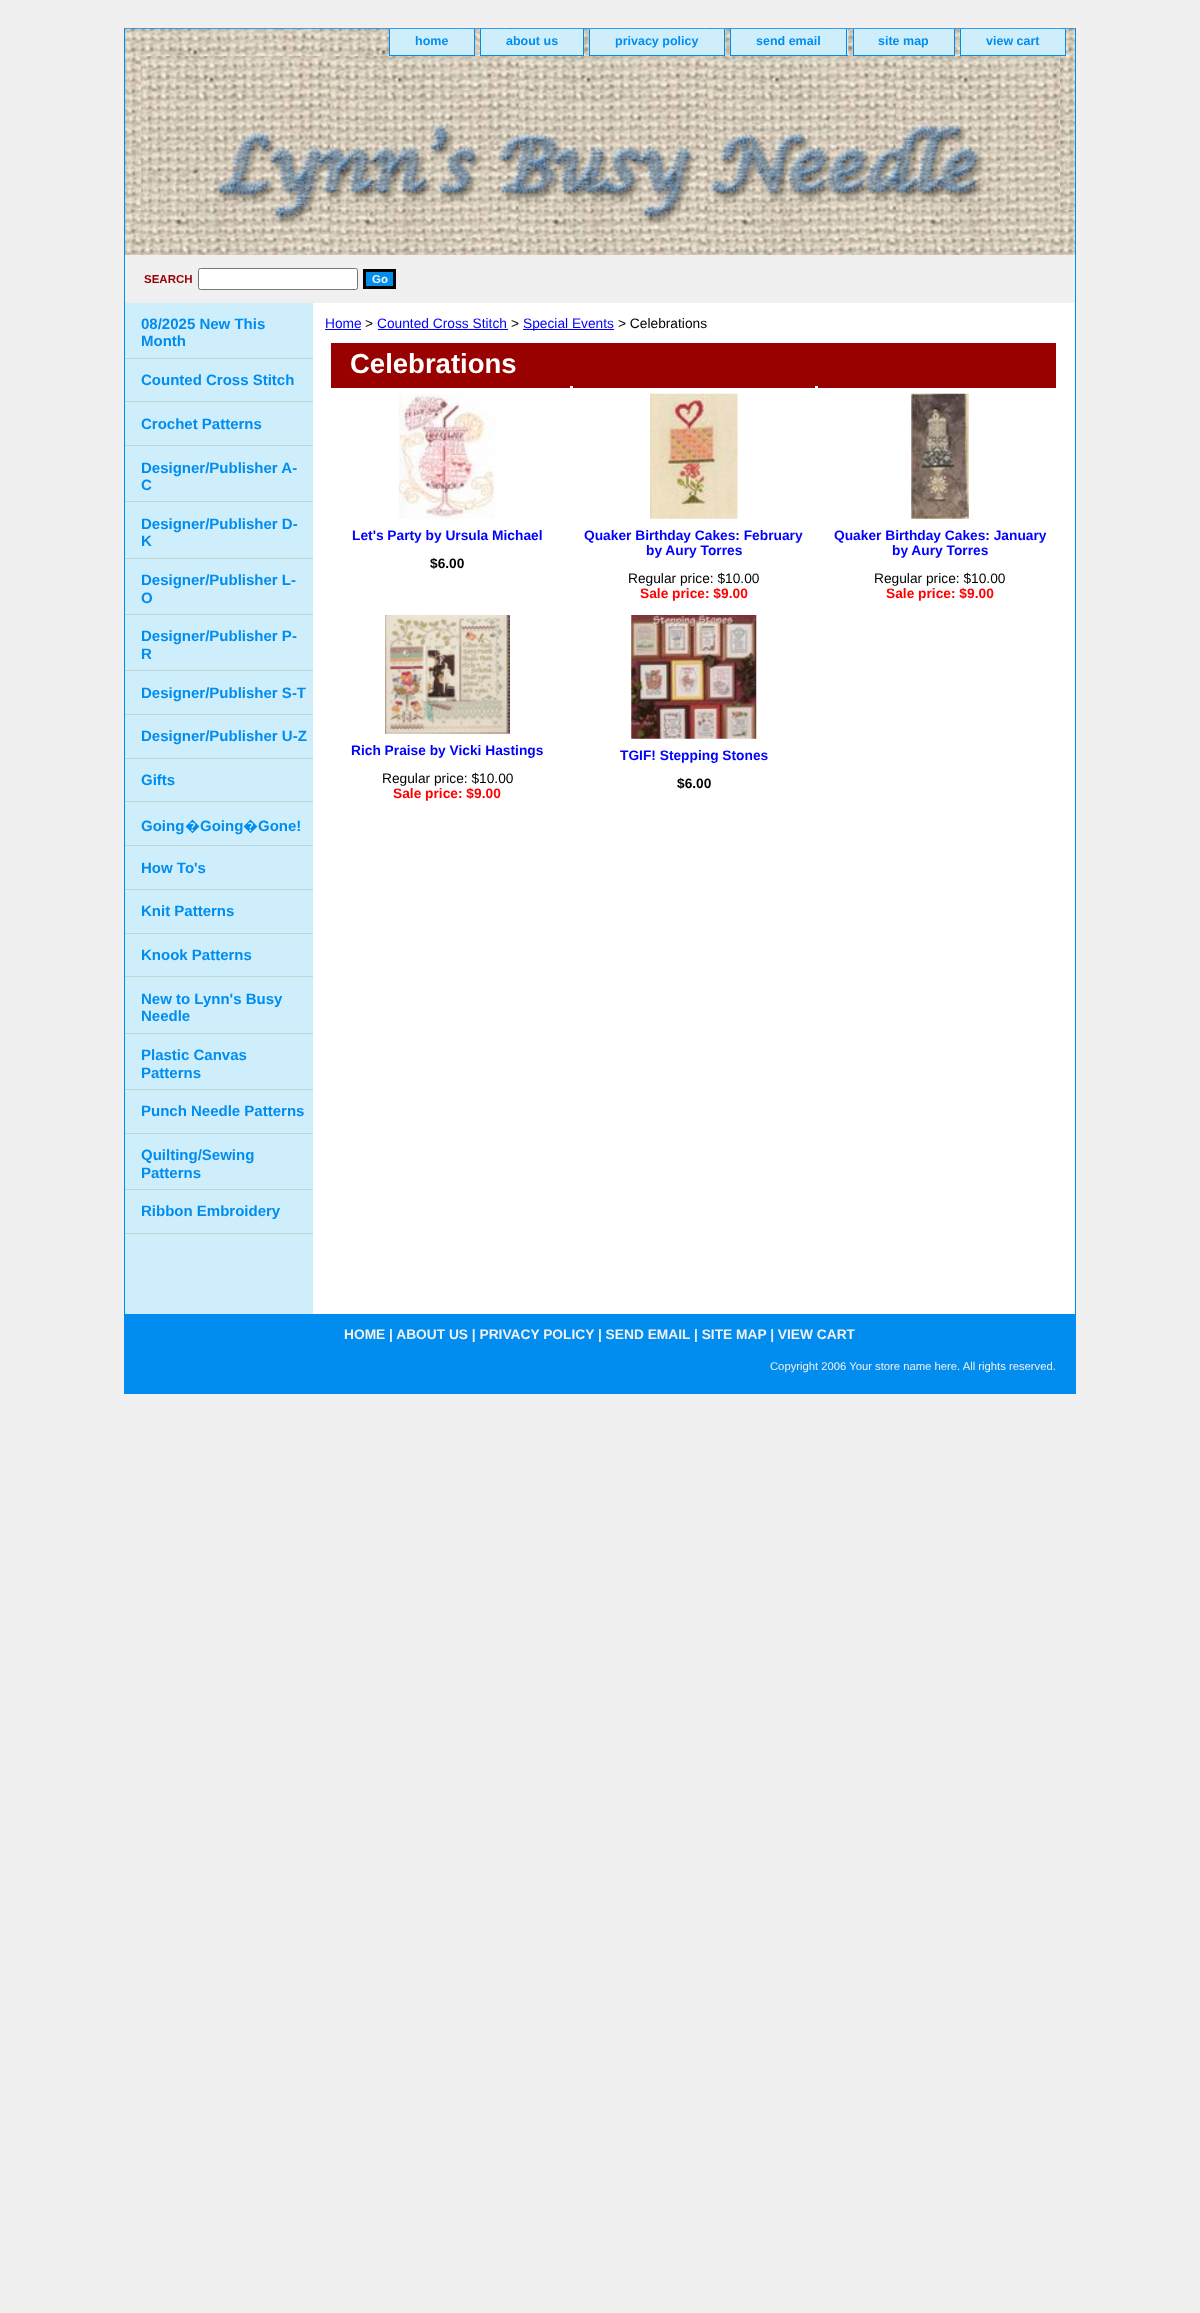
<svg xmlns="http://www.w3.org/2000/svg" width="1200" height="2313" viewBox="0 0 1200 2313">
  <rect width="100%" height="100%" fill="#f0f0f0"/>
  <rect x="313" y="303" width="762" height="1011" fill="#ffffff"/>
  <rect x="124.5" y="28.5" width="951" height="1365" fill="none" stroke="#008def"/>
  <image x="125" y="28" width="950" height="227" href="img1.png"/>
  <rect x="390" y="29" width="84" height="26" fill="#ceeefc"/>
  <rect x="474" y="29" width="1" height="27" fill="#008def"/>
  <rect x="389" y="55" width="86" height="1" fill="#008def"/>
  <rect x="389" y="29" width="1" height="27" fill="#008def"/>
  <text x="415" y="45" font-family="Liberation Sans" font-size="12.5" font-weight="bold" fill="#008def">home</text>
  <rect x="481" y="29" width="102" height="26" fill="#ceeefc"/>
  <rect x="583" y="29" width="1" height="27" fill="#008def"/>
  <rect x="480" y="55" width="104" height="1" fill="#008def"/>
  <rect x="480" y="29" width="1" height="27" fill="#008def"/>
  <text x="506" y="45" font-family="Liberation Sans" font-size="12.5" font-weight="bold" fill="#008def">about us</text>
  <rect x="590" y="29" width="134" height="26" fill="#ceeefc"/>
  <rect x="724" y="29" width="1" height="27" fill="#008def"/>
  <rect x="589" y="55" width="136" height="1" fill="#008def"/>
  <rect x="589" y="29" width="1" height="27" fill="#008def"/>
  <text x="615" y="45" font-family="Liberation Sans" font-size="12.5" font-weight="bold" fill="#008def">privacy policy</text>
  <rect x="731" y="29" width="117" height="26" fill="#ceeefc"/>
  <rect x="846" y="29" width="1" height="27" fill="#008def"/>
  <rect x="730" y="55" width="118" height="1" fill="#008def"/>
  <rect x="730" y="29" width="1" height="27" fill="#008def"/>
  <text x="756" y="45" font-family="Liberation Sans" font-size="12.5" font-weight="bold" fill="#008def">send email</text>
  <rect x="854" y="29" width="100" height="26" fill="#ceeefc"/>
  <rect x="954" y="29" width="1" height="27" fill="#008def"/>
  <rect x="853" y="55" width="102" height="1" fill="#008def"/>
  <rect x="853" y="29" width="1" height="27" fill="#008def"/>
  <text x="878" y="45" font-family="Liberation Sans" font-size="12.5" font-weight="bold" fill="#008def">site map</text>
  <rect x="961" y="29" width="104" height="26" fill="#ceeefc"/>
  <rect x="1065" y="29" width="1" height="27" fill="#008def"/>
  <rect x="960" y="55" width="106" height="1" fill="#008def"/>
  <rect x="960" y="29" width="1" height="27" fill="#008def"/>
  <text x="986" y="45" font-family="Liberation Sans" font-size="12.5" font-weight="bold" fill="#008def">view cart</text>
  <image x="141" y="56" width="919" height="182" href="img2.png"/>
  <text x="144" y="283" font-family="Liberation Sans" font-size="11.5" font-weight="bold" fill="#990000">SEARCH</text>
  <rect x="198.5" y="268.5" width="159" height="21" rx="2" fill="#ffffff" stroke="#767676"/>
  <rect x="364.5" y="270.5" width="30" height="17" fill="#008def" stroke="#000000" stroke-width="3"/>
  <text x="372" y="283" font-family="Liberation Sans" font-size="11.5" font-weight="bold" fill="#f0f0f0">Go</text>
  <rect x="125" y="303" width="188" height="1011" fill="#ceeefc"/>
  <rect x="125" y="358" width="188" height="1" fill="#c2d3d3"/>
  <text x="141" y="329" font-family="Liberation Sans" font-size="15" font-weight="bold" fill="#008def">08/2025 New This</text>
  <text x="141" y="346" font-family="Liberation Sans" font-size="15" font-weight="bold" fill="#008def">Month</text>
  <rect x="125" y="401" width="188" height="1" fill="#c2d3d3"/>
  <text x="141" y="385" font-family="Liberation Sans" font-size="15" font-weight="bold" fill="#008def">Counted Cross Stitch</text>
  <rect x="125" y="445" width="188" height="1" fill="#c2d3d3"/>
  <text x="141" y="429" font-family="Liberation Sans" font-size="15" font-weight="bold" fill="#008def">Crochet Patterns</text>
  <rect x="125" y="501" width="188" height="1" fill="#c2d3d3"/>
  <text x="141" y="473" font-family="Liberation Sans" font-size="15" font-weight="bold" fill="#008def">Designer/Publisher A-</text>
  <text x="141" y="490" font-family="Liberation Sans" font-size="15" font-weight="bold" fill="#008def">C</text>
  <rect x="125" y="558" width="188" height="1" fill="#c2d3d3"/>
  <text x="141" y="529" font-family="Liberation Sans" font-size="15" font-weight="bold" fill="#008def">Designer/Publisher D-</text>
  <text x="141" y="546" font-family="Liberation Sans" font-size="15" font-weight="bold" fill="#008def">K</text>
  <rect x="125" y="614" width="188" height="1" fill="#c2d3d3"/>
  <text x="141" y="585" font-family="Liberation Sans" font-size="15" font-weight="bold" fill="#008def">Designer/Publisher L-</text>
  <text x="141" y="603" font-family="Liberation Sans" font-size="15" font-weight="bold" fill="#008def">O</text>
  <rect x="125" y="670" width="188" height="1" fill="#c2d3d3"/>
  <text x="141" y="641" font-family="Liberation Sans" font-size="15" font-weight="bold" fill="#008def">Designer/Publisher P-</text>
  <text x="141" y="659" font-family="Liberation Sans" font-size="15" font-weight="bold" fill="#008def">R</text>
  <rect x="125" y="714" width="188" height="1" fill="#c2d3d3"/>
  <text x="141" y="698" font-family="Liberation Sans" font-size="15" font-weight="bold" fill="#008def">Designer/Publisher S-T</text>
  <rect x="125" y="758" width="188" height="1" fill="#c2d3d3"/>
  <text x="141" y="741" font-family="Liberation Sans" font-size="15" font-weight="bold" fill="#008def">Designer/Publisher U-Z</text>
  <rect x="125" y="801" width="188" height="1" fill="#c2d3d3"/>
  <text x="141" y="785" font-family="Liberation Sans" font-size="15" font-weight="bold" fill="#008def">Gifts</text>
  <rect x="125" y="845" width="188" height="1" fill="#c2d3d3"/>
  <text x="141" y="831" font-family="Liberation Sans" font-size="15" font-weight="bold" fill="#008def">Going</text>
  <text x="185" y="831" font-family="Noto Sans" font-size="15" font-weight="bold" fill="#008def">�</text>
  <text x="200" y="831" font-family="Liberation Sans" font-size="15" font-weight="bold" fill="#008def">Going</text>
  <text x="243" y="831" font-family="Noto Sans" font-size="15" font-weight="bold" fill="#008def">�</text>
  <text x="258" y="831" font-family="Liberation Sans" font-size="15" font-weight="bold" fill="#008def">Gone!</text>
  <rect x="125" y="889" width="188" height="1" fill="#c2d3d3"/>
  <text x="141" y="873" font-family="Liberation Sans" font-size="15" font-weight="bold" fill="#008def">How To's</text>
  <rect x="125" y="933" width="188" height="1" fill="#c2d3d3"/>
  <text x="141" y="916" font-family="Liberation Sans" font-size="15" font-weight="bold" fill="#008def">Knit Patterns</text>
  <rect x="125" y="976" width="188" height="1" fill="#c2d3d3"/>
  <text x="141" y="960" font-family="Liberation Sans" font-size="15" font-weight="bold" fill="#008def">Knook Patterns</text>
  <rect x="125" y="1033" width="188" height="1" fill="#c2d3d3"/>
  <text x="141" y="1004" font-family="Liberation Sans" font-size="15" font-weight="bold" fill="#008def">New to Lynn's Busy</text>
  <text x="141" y="1021" font-family="Liberation Sans" font-size="15" font-weight="bold" fill="#008def">Needle</text>
  <rect x="125" y="1089" width="188" height="1" fill="#c2d3d3"/>
  <text x="141" y="1060" font-family="Liberation Sans" font-size="15" font-weight="bold" fill="#008def">Plastic Canvas</text>
  <text x="141" y="1078" font-family="Liberation Sans" font-size="15" font-weight="bold" fill="#008def">Patterns</text>
  <rect x="125" y="1133" width="188" height="1" fill="#c2d3d3"/>
  <text x="141" y="1116" font-family="Liberation Sans" font-size="15" font-weight="bold" fill="#008def">Punch Needle Patterns</text>
  <rect x="125" y="1189" width="188" height="1" fill="#c2d3d3"/>
  <text x="141" y="1160" font-family="Liberation Sans" font-size="15" font-weight="bold" fill="#008def">Quilting/Sewing</text>
  <text x="141" y="1178" font-family="Liberation Sans" font-size="15" font-weight="bold" fill="#008def">Patterns</text>
  <rect x="125" y="1233" width="188" height="1" fill="#c2d3d3"/>
  <text x="141" y="1216" font-family="Liberation Sans" font-size="15" font-weight="bold" fill="#008def">Ribbon Embroidery</text>
  <text x="325" y="328" font-family="Liberation Sans" font-size="13.75" fill="#0000ff">Home</text>
  <rect x="325" y="329" width="36" height="1" fill="#0000ff"/>
  <text x="365" y="328" font-family="Liberation Sans" font-size="13.75" fill="#000000">&gt;</text>
  <text x="377" y="328" font-family="Liberation Sans" font-size="13.75" fill="#0000ff">Counted Cross Stitch</text>
  <rect x="378" y="329" width="130" height="1" fill="#0000ff"/>
  <text x="511" y="328" font-family="Liberation Sans" font-size="13.75" fill="#000000">&gt;</text>
  <rect x="523" y="329" width="91" height="1" fill="#0000ff"/>
  <text x="523" y="328" font-family="Liberation Sans" font-size="13.75" fill="#0000ff">Special Events</text>
  <text x="618" y="328" font-family="Liberation Sans" font-size="13.75" fill="#000000">&gt; Celebrations</text>
  <rect x="331" y="343" width="725" height="45" fill="#990000"/>
  <text x="350" y="373" font-family="Liberation Sans" font-size="27.5" font-weight="bold" fill="#ffffff">Celebrations</text>
  <rect x="570" y="386" width="3" height="2" fill="#ffffff"/>
  <image x="398" y="394" width="97" height="125" href="img3.png"/>
  <text x="352" y="540" font-family="Liberation Sans" font-size="13.75" font-weight="bold" fill="#0000ff">Let's Party by Ursula Michael</text>
  <text x="430" y="568" font-family="Liberation Sans" font-size="13.75" font-weight="bold" fill="#000000">$6.00</text>
  <rect x="815" y="386" width="3" height="2" fill="#ffffff"/>
  <image x="650" y="393" width="88" height="126" href="img4.png"/>
  <text x="584" y="540" font-family="Liberation Sans" font-size="13.75" font-weight="bold" fill="#0000ff">Quaker Birthday Cakes: February</text>
  <text x="646" y="555" font-family="Liberation Sans" font-size="13.75" font-weight="bold" fill="#0000ff">by Aury Torres</text>
  <text x="628" y="583" font-family="Liberation Sans" font-size="13.75" fill="#000000">Regular price: $10.00</text>
  <text x="640" y="598" font-family="Liberation Sans" font-size="13.75" font-weight="bold" fill="#ff0000">Sale price: $9.00</text>
  <image x="911" y="393" width="58" height="126" href="img5.png"/>
  <text x="834" y="540" font-family="Liberation Sans" font-size="13.75" font-weight="bold" fill="#0000ff">Quaker Birthday Cakes: January</text>
  <text x="892" y="555" font-family="Liberation Sans" font-size="13.75" font-weight="bold" fill="#0000ff">by Aury Torres</text>
  <text x="874" y="583" font-family="Liberation Sans" font-size="13.75" fill="#000000">Regular price: $10.00</text>
  <text x="886" y="598" font-family="Liberation Sans" font-size="13.75" font-weight="bold" fill="#ff0000">Sale price: $9.00</text>
  <image x="385" y="615" width="125" height="119" href="img6.png"/>
  <text x="351" y="755" font-family="Liberation Sans" font-size="13.75" font-weight="bold" fill="#0000ff">Rich Praise by Vicki Hastings</text>
  <text x="382" y="783" font-family="Liberation Sans" font-size="13.75" fill="#000000">Regular price: $10.00</text>
  <text x="393" y="798" font-family="Liberation Sans" font-size="13.75" font-weight="bold" fill="#ff0000">Sale price: $9.00</text>
  <image x="631" y="615" width="126" height="124" href="img7.png"/>
  <text x="620" y="760" font-family="Liberation Sans" font-size="13.75" font-weight="bold" fill="#0000ff">TGIF! Stepping Stones</text>
  <text x="677" y="788" font-family="Liberation Sans" font-size="13.75" font-weight="bold" fill="#000000">$6.00</text>
  <rect x="125" y="1314" width="950" height="79" fill="#008def"/>
  <text x="344" y="1339" font-family="Liberation Sans" font-size="13.75" font-weight="bold" fill="#f0f0f0">HOME | ABOUT US | PRIVACY POLICY | SEND EMAIL | SITE MAP | VIEW CART</text>
  <text x="770" y="1370" font-family="Liberation Sans" font-size="11.25" fill="#f0f0f0">Copyright 2006 Your store name here. All rights reserved.</text>
</svg>
